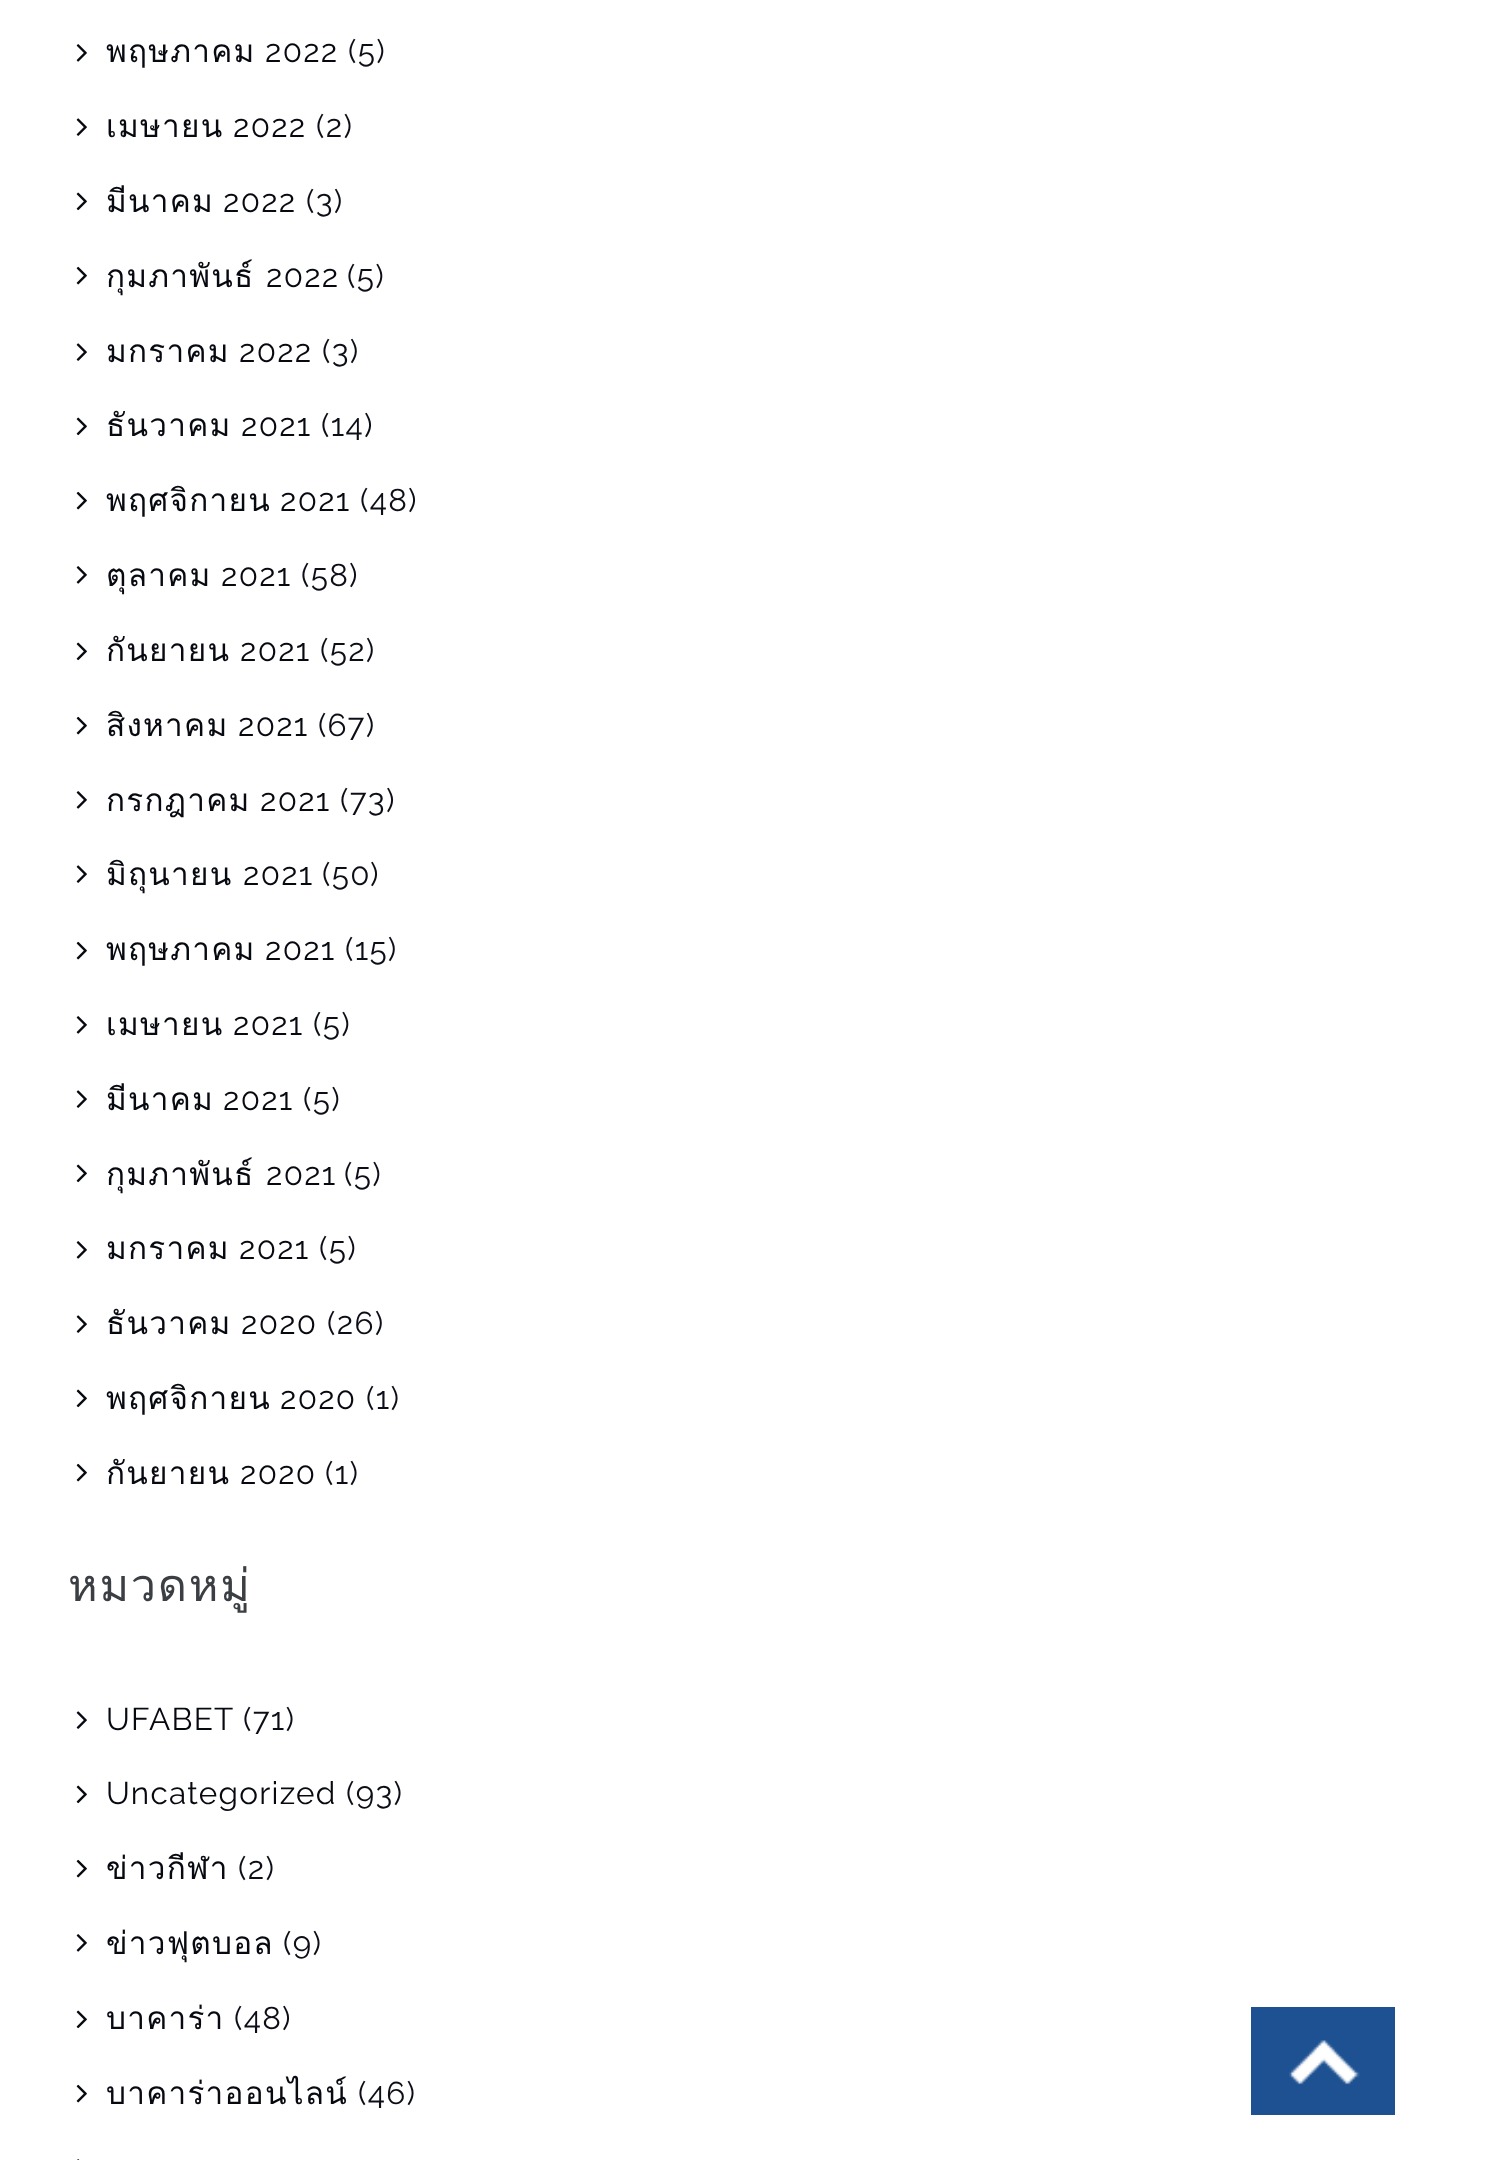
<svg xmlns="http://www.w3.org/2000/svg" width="1503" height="2160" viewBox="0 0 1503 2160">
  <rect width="100%" height="100%" fill="#ffffff"/>
  <image x="76" y="44" width="11" height="18" href="img1.png"/>
  <text x="106" y="62" font-family="Loma" font-size="31.5" letter-spacing="1.25" fill="#070910">พฤษภาคม</text>
  <text x="265" y="62" font-family="Raleway" font-size="31.5" letter-spacing="1.25" fill="#070910">2022</text>
  <text x="348" y="62" font-family="Raleway" font-size="31.5" letter-spacing="1.25" fill="#0c0e17">(5)</text>
  <image x="76" y="118" width="11" height="18" href="img2.png"/>
  <text x="106" y="137" font-family="Loma" font-size="31.5" letter-spacing="1.25" fill="#070910">เมษายน</text>
  <text x="233" y="137" font-family="Raleway" font-size="31.5" letter-spacing="1.25" fill="#070910">2022</text>
  <text x="316" y="137" font-family="Raleway" font-size="31.5" letter-spacing="1.25" fill="#0c0e17">(2)</text>
  <image x="76" y="192" width="11" height="19" href="img3.png"/>
  <text x="106" y="212" font-family="Loma" font-size="31.5" letter-spacing="1.25" fill="#070910">มีนาคม</text>
  <text x="223" y="212" font-family="Raleway" font-size="31.5" letter-spacing="1.25" fill="#070910">2022</text>
  <text x="306" y="212" font-family="Raleway" font-size="31.5" letter-spacing="1.25" fill="#0c0e17">(3)</text>
  <image x="76" y="266" width="11" height="19" href="img4.png"/>
  <text x="106" y="287" font-family="Loma" font-size="31.5" letter-spacing="1.25" fill="#070910">กุมภาพันธ์</text>
  <text x="266" y="287" font-family="Raleway" font-size="31.5" letter-spacing="1.25" fill="#070910">2022</text>
  <text x="347" y="287" font-family="Raleway" font-size="31.5" letter-spacing="1.25" fill="#0c0e17">(5)</text>
  <image x="76" y="343" width="11" height="18" href="img2.png"/>
  <text x="106" y="362" font-family="Loma" font-size="31.5" letter-spacing="1.25" fill="#070910">มกราคม</text>
  <text x="239" y="362" font-family="Raleway" font-size="31.5" letter-spacing="1.25" fill="#070910">2022</text>
  <text x="322" y="362" font-family="Raleway" font-size="31.5" letter-spacing="1.25" fill="#0c0e17">(3)</text>
  <image x="76" y="417" width="11" height="19" href="img3.png"/>
  <text x="106" y="436" font-family="Loma" font-size="31.5" letter-spacing="1.25" fill="#070910">ธันวาคม</text>
  <text x="241" y="436" font-family="Raleway" font-size="31.5" letter-spacing="1.25" fill="#070910">2021</text>
  <text x="321" y="436" font-family="Raleway" font-size="31.5" letter-spacing="1.25" fill="#0c0e17">(14)</text>
  <image x="76" y="491" width="11" height="19" href="img4.png"/>
  <text x="106" y="511" font-family="Loma" font-size="31.5" letter-spacing="1.25" fill="#070910">พฤศจิกายน</text>
  <text x="280" y="511" font-family="Raleway" font-size="31.5" letter-spacing="1.25" fill="#070910">2021</text>
  <text x="360" y="511" font-family="Raleway" font-size="31.5" letter-spacing="1.25" fill="#0c0e17">(48)</text>
  <image x="76" y="566" width="11" height="18" href="img1.png"/>
  <text x="106" y="586" font-family="Loma" font-size="31.5" letter-spacing="1.25" fill="#070910">ตุลาคม</text>
  <text x="221" y="586" font-family="Raleway" font-size="31.5" letter-spacing="1.25" fill="#070910">2021</text>
  <text x="301" y="586" font-family="Raleway" font-size="31.5" letter-spacing="1.25" fill="#0c0e17">(58)</text>
  <image x="76" y="642" width="11" height="19" href="img3.png"/>
  <text x="106" y="661" font-family="Loma" font-size="31.5" letter-spacing="1.25" fill="#070910">กันยายน</text>
  <text x="240" y="661" font-family="Raleway" font-size="31.5" letter-spacing="1.25" fill="#070910">2021</text>
  <text x="320" y="661" font-family="Raleway" font-size="31.5" letter-spacing="1.25" fill="#0c0e17">(52)</text>
  <image x="76" y="716" width="11" height="19" href="img4.png"/>
  <text x="106" y="736" font-family="Loma" font-size="31.5" letter-spacing="1.25" fill="#070910">สิงหาคม</text>
  <text x="238" y="736" font-family="Raleway" font-size="31.5" letter-spacing="1.25" fill="#070910">2021</text>
  <text x="318" y="736" font-family="Raleway" font-size="31.5" letter-spacing="1.25" fill="#0c0e17">(67)</text>
  <image x="76" y="791" width="11" height="18" href="img1.png"/>
  <text x="106" y="811" font-family="Loma" font-size="31.5" letter-spacing="1.25" fill="#070910">กรกฎาคม</text>
  <text x="260" y="811" font-family="Raleway" font-size="31.5" letter-spacing="1.25" fill="#070910">2021</text>
  <text x="340" y="811" font-family="Raleway" font-size="31.5" letter-spacing="1.25" fill="#0c0e17">(73)</text>
  <image x="76" y="865" width="11" height="18" href="img2.png"/>
  <text x="106" y="885" font-family="Loma" font-size="31.5" letter-spacing="1.25" fill="#070910">มิถุนายน</text>
  <text x="243" y="885" font-family="Raleway" font-size="31.5" letter-spacing="1.25" fill="#070910">2021</text>
  <text x="322" y="885" font-family="Raleway" font-size="31.5" letter-spacing="1.25" fill="#0c0e17">(50)</text>
  <image x="76" y="941" width="11" height="19" href="img4.png"/>
  <text x="106" y="960" font-family="Loma" font-size="31.5" letter-spacing="1.25" fill="#070910">พฤษภาคม</text>
  <text x="265" y="960" font-family="Raleway" font-size="31.5" letter-spacing="1.25" fill="#070910">2021</text>
  <text x="345" y="960" font-family="Raleway" font-size="31.5" letter-spacing="1.25" fill="#0c0e17">(15)</text>
  <image x="76" y="1016" width="11" height="18" href="img1.png"/>
  <text x="106" y="1035" font-family="Loma" font-size="31.5" letter-spacing="1.25" fill="#070910">เมษายน</text>
  <text x="233" y="1035" font-family="Raleway" font-size="31.5" letter-spacing="1.25" fill="#070910">2021</text>
  <text x="313" y="1035" font-family="Raleway" font-size="31.5" letter-spacing="1.25" fill="#0c0e17">(5)</text>
  <image x="76" y="1090" width="11" height="18" href="img2.png"/>
  <text x="106" y="1110" font-family="Loma" font-size="31.5" letter-spacing="1.25" fill="#070910">มีนาคม</text>
  <text x="223" y="1110" font-family="Raleway" font-size="31.5" letter-spacing="1.25" fill="#070910">2021</text>
  <text x="303" y="1110" font-family="Raleway" font-size="31.5" letter-spacing="1.25" fill="#0c0e17">(5)</text>
  <image x="76" y="1164" width="11" height="19" href="img3.png"/>
  <text x="106" y="1185" font-family="Loma" font-size="31.5" letter-spacing="1.25" fill="#070910">กุมภาพันธ์</text>
  <text x="266" y="1185" font-family="Raleway" font-size="31.5" letter-spacing="1.25" fill="#070910">2021</text>
  <text x="344" y="1185" font-family="Raleway" font-size="31.5" letter-spacing="1.25" fill="#0c0e17">(5)</text>
  <image x="76" y="1241" width="11" height="18" href="img1.png"/>
  <text x="106" y="1259" font-family="Loma" font-size="31.5" letter-spacing="1.25" fill="#070910">มกราคม</text>
  <text x="239" y="1259" font-family="Raleway" font-size="31.5" letter-spacing="1.25" fill="#070910">2021</text>
  <text x="319" y="1259" font-family="Raleway" font-size="31.5" letter-spacing="1.25" fill="#0c0e17">(5)</text>
  <image x="76" y="1315" width="11" height="18" href="img2.png"/>
  <text x="106" y="1334" font-family="Loma" font-size="31.5" letter-spacing="1.25" fill="#070910">ธันวาคม</text>
  <text x="241" y="1334" font-family="Raleway" font-size="31.5" letter-spacing="1.25" fill="#070910">2020</text>
  <text x="327" y="1334" font-family="Raleway" font-size="31.5" letter-spacing="1.25" fill="#0c0e17">(26)</text>
  <image x="76" y="1389" width="11" height="19" href="img3.png"/>
  <text x="106" y="1409" font-family="Loma" font-size="31.5" letter-spacing="1.25" fill="#070910">พฤศจิกายน</text>
  <text x="280" y="1409" font-family="Raleway" font-size="31.5" letter-spacing="1.25" fill="#070910">2020</text>
  <text x="366" y="1409" font-family="Raleway" font-size="31.5" letter-spacing="1.25" fill="#0c0e17">(1)</text>
  <image x="76" y="1463" width="11" height="19" href="img4.png"/>
  <text x="106" y="1484" font-family="Loma" font-size="31.5" letter-spacing="1.25" fill="#070910">กันยายน</text>
  <text x="240" y="1484" font-family="Raleway" font-size="31.5" letter-spacing="1.25" fill="#070910">2020</text>
  <text x="325" y="1484" font-family="Raleway" font-size="31.5" letter-spacing="1.25" fill="#0c0e17">(1)</text>
  <text x="68" y="1601" font-family="Loma" font-size="45" letter-spacing="1.75" fill="#3b3f44">หมวดหมู่</text>
  <image x="76" y="1711" width="11" height="18" href="img2.png"/>
  <text x="106" y="1730" font-family="Raleway" font-size="31.5" letter-spacing="1.25" fill="#070910">UFABET</text>
  <text x="243" y="1730" font-family="Raleway" font-size="31.5" letter-spacing="1.25" fill="#0c0e17">(71)</text>
  <image x="76" y="1785" width="11" height="19" href="img3.png"/>
  <text x="106" y="1804" font-family="Raleway" font-size="31.5" letter-spacing="1.25" fill="#070910">Uncategorized</text>
  <text x="346" y="1804" font-family="Raleway" font-size="31.5" letter-spacing="1.25" fill="#0c0e17">(93)</text>
  <image x="76" y="1859" width="11" height="19" href="img4.png"/>
  <text x="106" y="1879" font-family="Loma" font-size="31.5" letter-spacing="1.25" fill="#070910">ข่าวกีฬา</text>
  <text x="238" y="1879" font-family="Raleway" font-size="31.5" letter-spacing="1.25" fill="#0c0e17">(2)</text>
  <image x="76" y="1934" width="11" height="18" href="img1.png"/>
  <text x="106" y="1954" font-family="Loma" font-size="31.5" letter-spacing="1.25" fill="#070910">ข่าวฟุตบอล</text>
  <text x="283" y="1954" font-family="Raleway" font-size="31.5" letter-spacing="1.25" fill="#0c0e17">(9)</text>
  <image x="76" y="2010" width="11" height="19" href="img3.png"/>
  <text x="106" y="2029" font-family="Loma" font-size="31.5" letter-spacing="1.25" fill="#070910">บาคาร่า</text>
  <text x="234" y="2029" font-family="Raleway" font-size="31.5" letter-spacing="1.25" fill="#0c0e17">(48)</text>
  <image x="76" y="2084" width="11" height="19" href="img4.png"/>
  <text x="106" y="2104" font-family="Loma" font-size="31.5" letter-spacing="1.25" fill="#070910">บาคาร่าออนไลน์</text>
  <text x="358" y="2104" font-family="Raleway" font-size="31.5" letter-spacing="1.25" fill="#0c0e17">(46)</text>
  <image x="77" y="2159" width="3" height="1" href="img5.png"/>
  <rect x="1251" y="2007" width="144" height="108" fill="#1e5191"/>
  <image x="1289" y="2040" width="71" height="45" href="img6.png"/>
</svg>
